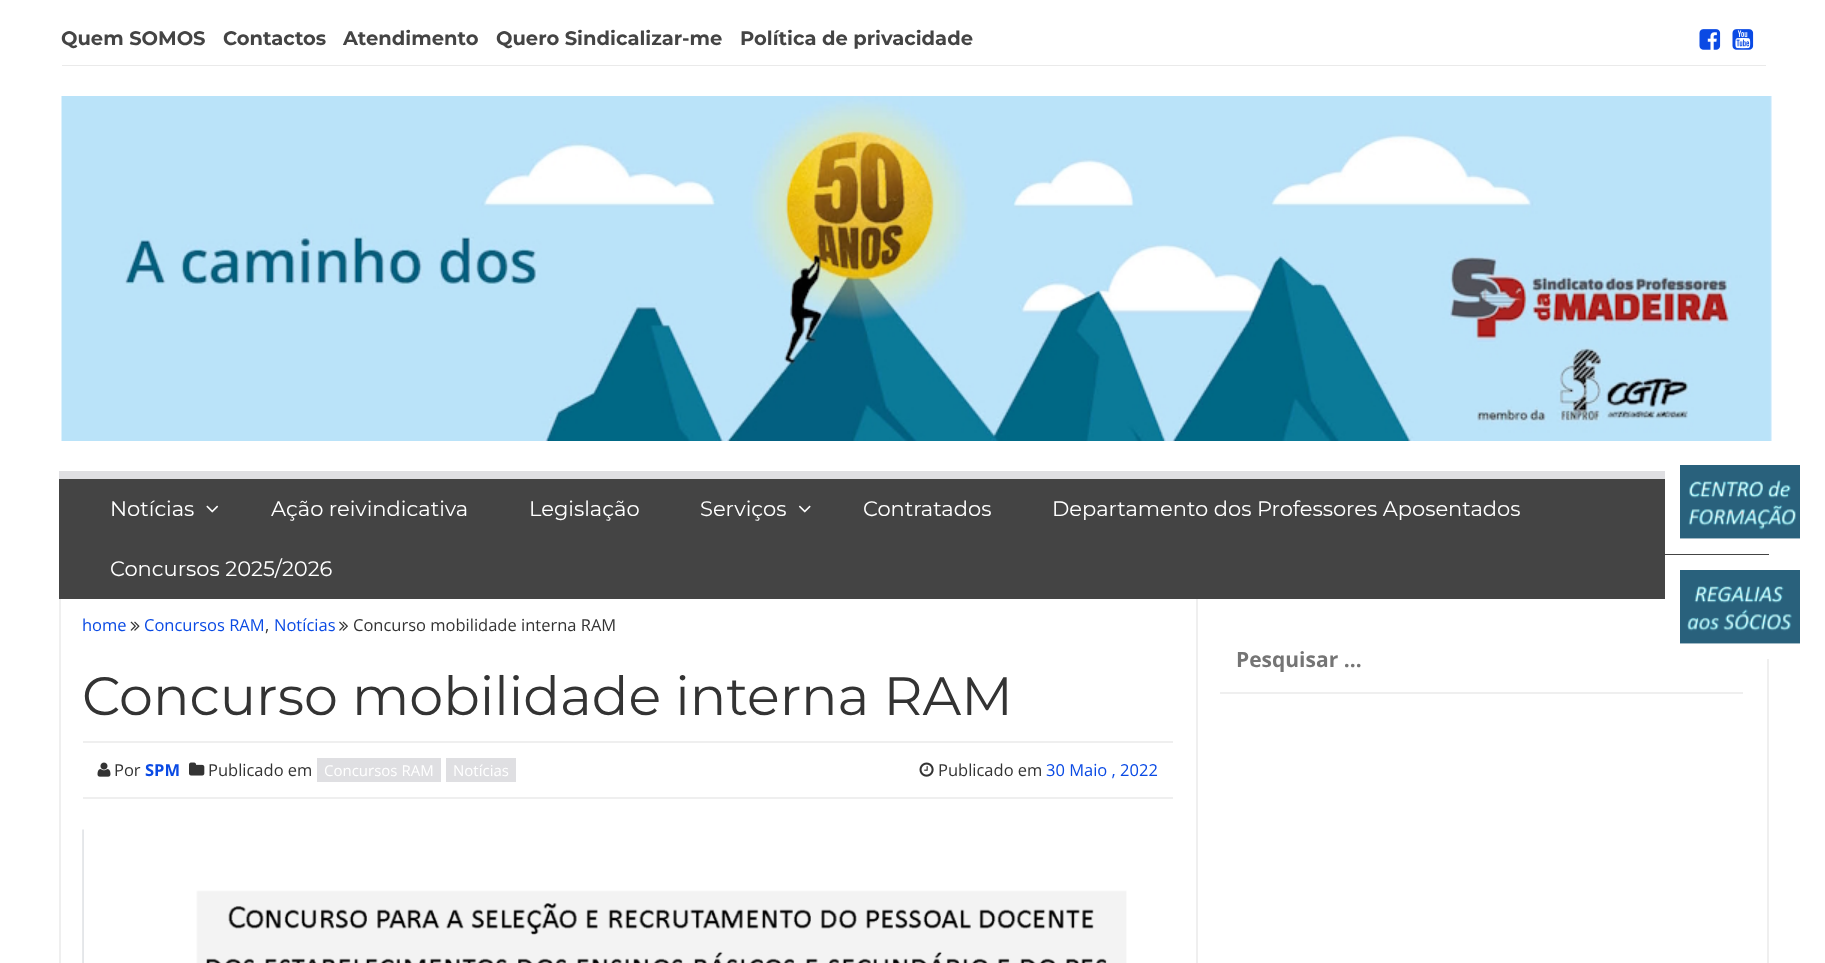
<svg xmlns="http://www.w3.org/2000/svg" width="1825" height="963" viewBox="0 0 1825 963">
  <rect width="100%" height="100%" fill="#ffffff"/>
  <rect x="62" y="65" width="1704" height="1" fill="#eaeaea"/>
  <text x="61" y="45" font-family="Montserrat" font-size="19.5" font-weight="bold" fill="#444444">Quem SOMOS</text>
  <text x="223" y="45" font-family="Montserrat" font-size="19.5" font-weight="bold" fill="#444444">Contactos</text>
  <text x="343" y="45" font-family="Montserrat" font-size="19.5" font-weight="bold" fill="#444444">Atendimento</text>
  <text x="496" y="45" font-family="Montserrat" font-size="19.5" font-weight="bold" fill="#444444">Quero Sindicalizar-me</text>
  <text x="740" y="45" font-family="Montserrat" font-size="19.5" font-weight="bold" fill="#444444">Política de privacidade</text>
  <image x="1699" y="29" width="22" height="21" href="img1.png"/>
  <image x="1732" y="29" width="22" height="21" href="img2.png"/>
  <image x="61" y="96" width="1711" height="345" href="img3.png"/>
  <rect x="59" y="479" width="1710" height="120" fill="#444444"/>
  <rect x="59" y="471" width="1606" height="8" fill="#dfdfe2"/>
  <text x="110" y="516" font-family="Montserrat" font-size="21" fill="#ffffff">Notícias</text>
  <image x="206" y="505" width="13" height="8" href="img4.png"/>
  <text x="271" y="516" font-family="Montserrat" font-size="21" fill="#ffffff">Ação reivindicativa</text>
  <text x="529" y="516" font-family="Montserrat" font-size="21" fill="#ffffff">Legislação</text>
  <text x="700" y="516" font-family="Montserrat" font-size="21" fill="#ffffff">Serviços</text>
  <image x="798" y="505" width="13" height="8" href="img5.png"/>
  <text x="863" y="516" font-family="Montserrat" font-size="21" fill="#ffffff">Contratados</text>
  <text x="1052" y="516" font-family="Montserrat" font-size="21" fill="#ffffff">Departamento dos Professores Aposentados</text>
  <text x="110" y="576" font-family="Montserrat" font-size="21" fill="#ffffff">Concursos 2025/2026</text>
  <rect x="1665" y="479" width="104" height="75" fill="#ffffff"/>
  <image x="1680" y="465" width="120" height="74" href="img6.png"/>
  <rect x="1665" y="555" width="104" height="44" fill="#ffffff"/>
  <image x="1680" y="570" width="120" height="74" href="img7.png"/>
  <rect x="1767" y="659" width="2" height="304" fill="#efefef"/>
  <rect x="59" y="599" width="2" height="364" fill="#efefef"/>
  <rect x="1196" y="599" width="2" height="364" fill="#efefef"/>
  <text x="82" y="631" font-family="Open Sans" font-size="16.5" fill="#0a4ae4">home</text>
  <image x="130" y="621" width="10" height="10" href="img8.png"/>
  <text x="144" y="631" font-family="Open Sans" font-size="16.5" fill="#0a4ae4">Concursos RAM</text>
  <text x="274" y="631" font-family="Open Sans" font-size="16.5" fill="#0a4ae4">Notícias</text>
  <image x="339" y="621" width="9" height="10" href="img9.png"/>
  <text x="353" y="631" font-family="Open Sans" font-size="16.5" fill="#333333">Concurso mobilidade interna RAM</text>
  <text x="265" y="631" font-family="Open Sans" font-size="16.5" fill="#333333">,</text>
  <text x="82" y="715" font-family="Montserrat" font-size="54" fill="#333333">Concurso mobilidade interna RAM</text>
  <rect x="83" y="741" width="1090" height="2" fill="#efefef"/>
  <rect x="83" y="797" width="1090" height="2" fill="#efefef"/>
  <image x="97" y="762" width="14" height="15" href="img10.png"/>
  <text x="114" y="776" font-family="Open Sans" font-size="16.5" fill="#333333">Por</text>
  <text x="145" y="776" font-family="Open Sans" font-size="16.5" font-weight="bold" fill="#0a4ae4">SPM</text>
  <image x="189" y="762" width="16" height="14" href="img11.png"/>
  <text x="208" y="776" font-family="Open Sans" font-size="16.5" fill="#333333">Publicado em</text>
  <rect x="317" y="758" width="124" height="24" fill="#dfdfe2"/>
  <text x="324" y="776" font-family="Open Sans" font-size="15" fill="#ffffff">Concursos RAM</text>
  <rect x="446" y="758" width="70" height="24" fill="#dfdfe2"/>
  <text x="453" y="776" font-family="Open Sans" font-size="15" fill="#ffffff">Notícias</text>
  <image x="919" y="762" width="15" height="15" href="img12.png"/>
  <text x="938" y="776" font-family="Open Sans" font-size="16.5" fill="#333333">Publicado em</text>
  <text x="1046" y="776" font-family="Open Sans" font-size="16.5" fill="#0a4ae4">30 Maio , 2022</text>
  <image x="82" y="829" width="1045" height="134" href="img13.png"/>
  <rect x="1220" y="692" width="523" height="2" fill="#efefef"/>
  <text x="1236" y="667" font-family="Open Sans" font-size="21" font-weight="bold" fill="#757575">Pesquisar …</text>
</svg>
